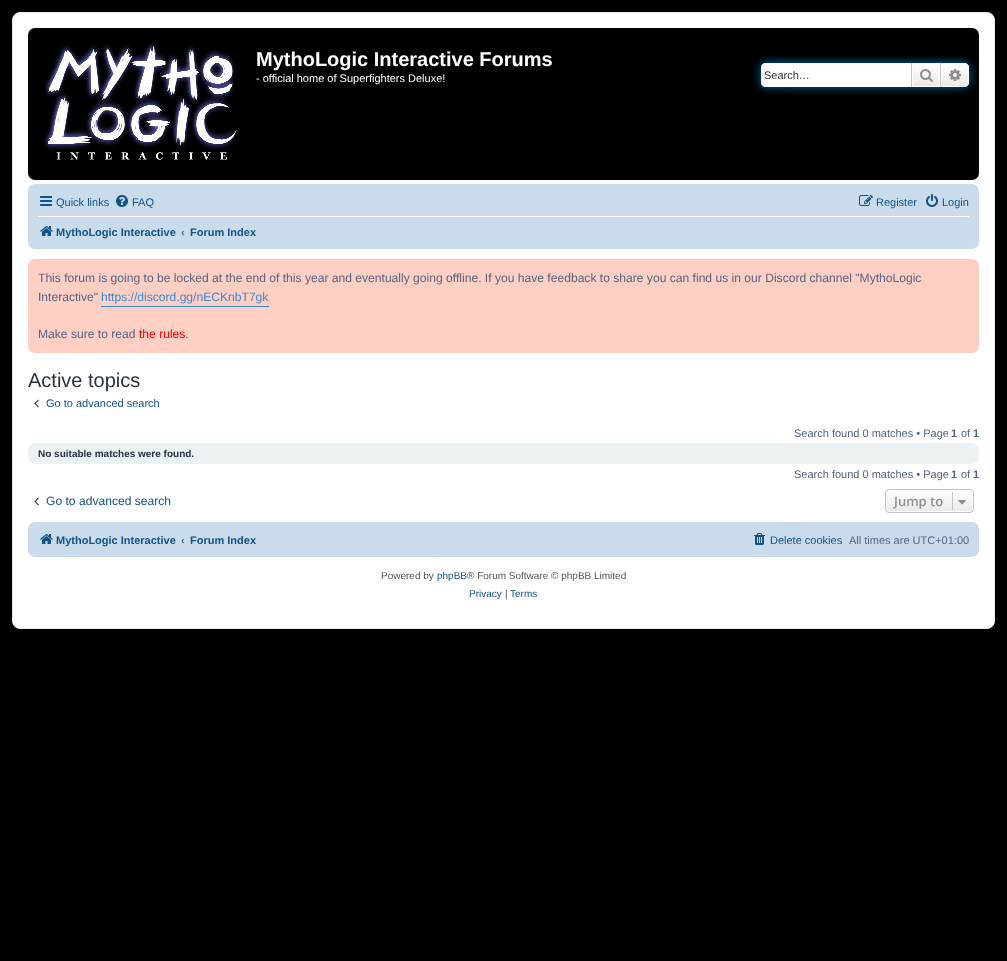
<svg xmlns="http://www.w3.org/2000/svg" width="1007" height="961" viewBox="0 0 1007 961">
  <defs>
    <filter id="blur1" x="-50%" y="-200%" width="200%" height="500%"><feGaussianBlur stdDeviation="5"/></filter>
    <linearGradient id="g1" gradientUnits="userSpaceOnUse" x1="926" y1="63" x2="926" y2="87"><stop offset="0" stop-color="#ffffff"/><stop offset="1" stop-color="#e9e9e9"/></linearGradient>
    <linearGradient id="g2" gradientUnits="userSpaceOnUse" x1="955" y1="63" x2="955" y2="87"><stop offset="0" stop-color="#ffffff"/><stop offset="1" stop-color="#e9e9e9"/></linearGradient>
    <clipPath id="clip1"><rect x="885" y="489" width="89" height="24" rx="4"/></clipPath>
    <linearGradient id="g3" gradientUnits="userSpaceOnUse" x1="930" y1="490" x2="930" y2="512"><stop offset="0" stop-color="#ffffff"/><stop offset="1" stop-color="#e9e9e9"/></linearGradient>
  </defs>
  <rect width="100%" height="100%" fill="#000000"/>
  <rect x="12.5" y="12.5" width="982" height="616" rx="7.5" fill="#ffffff" stroke="#e6e9ed"/>
  <rect x="28" y="28" width="951" height="152" rx="7" fill="#000000"/>
  <image x="43" y="43" width="195" height="117" href="img1.png"/>
  <text x="256" y="66" font-family="Liberation Sans" font-size="20" font-weight="bold" fill="#ffffff">MythoLogic Interactive Forums</text>
  <text x="256" y="82" font-family="Liberation Sans" font-size="11" fill="#ffffff">- official home of Superfighters Deluxe!</text>
  <rect x="761" y="63" width="208" height="24" rx="4" fill="#0075b0" filter="url(#blur1)"/>
  <path d="M765 63H911V87H765C763 87 761 85 761 83V67C761 65 763 63 765 63Z" fill="#ffffff"/>
  <text x="764" y="79" font-family="Liberation Sans" font-size="11" fill="#333333">Search…</text>
  <rect x="913" y="64" width="26" height="22" fill="url(#g1)"/>
  <rect x="912.5" y="63.5" width="27" height="23" fill="none" stroke="#ffffff"/>
  <rect x="940" y="63" width="1" height="24" fill="#c7c3bf"/>
  <rect x="911" y="63" width="1" height="24" fill="#c7c3bf"/>
  <image x="920" y="69" width="13" height="13" href="img2.png"/>
  <path d="M941.5 63.5H965C967 63.5 968.5 65 968.5 67V83C968.5 85 967 86.5 965 86.5H941.5Z" fill="url(#g2)" stroke="#ffffff"/>
  <image x="949" y="69" width="12" height="12" href="img3.png"/>
  <rect x="28" y="184" width="951" height="65" rx="7" fill="#cadceb"/>
  <image x="40" y="196" width="12" height="10" href="img4.png"/>
  <text x="56" y="206" font-family="Liberation Sans" font-size="11" fill="#105289">Quick links</text>
  <image x="116" y="195" width="12" height="12" href="img5.png"/>
  <text x="132" y="206" font-family="Liberation Sans" font-size="11" fill="#105289">FAQ</text>
  <image x="859" y="195" width="14" height="11" href="img6.png"/>
  <text x="876" y="206" font-family="Liberation Sans" font-size="11" fill="#105289">Register</text>
  <image x="926" y="194" width="12" height="13" href="img7.png"/>
  <text x="942" y="206" font-family="Liberation Sans" font-size="11" fill="#105289">Login</text>
  <rect x="38" y="216" width="931" height="1" fill="#ffffff"/>
  <image x="40" y="226" width="13" height="10" href="img8.png"/>
  <text x="56" y="236" font-family="Liberation Sans" font-size="11" font-weight="bold" fill="#105289">MythoLogic Interactive</text>
  <text x="181" y="236" font-family="Liberation Sans" font-size="11" font-weight="bold" fill="#536482">‹</text>
  <text x="190" y="236" font-family="Liberation Sans" font-size="11" font-weight="bold" fill="#105289">Forum Index</text>
  <rect x="28" y="259" width="951" height="94" rx="7" fill="#ffcfc4"/>
  <text x="38" y="282" font-family="Liberation Sans" font-size="12.1" fill="#536482">This forum is going to be locked at the end of this year and eventually going offline. If you have feedback to share you can find us in our Discord channel "MythoLogic</text>
  <text x="38" y="301" font-family="Liberation Sans" font-size="12.1" fill="#536482">Interactive"</text>
  <rect x="101" y="306" width="168" height="1" fill="#368ad2"/>
  <text x="101" y="301" font-family="Liberation Sans" font-size="12.1" fill="#368ad2">https://discord.gg/nECKnbT7gk</text>
  <text x="38" y="338" font-family="Liberation Sans" font-size="12.1" fill="#536482">Make sure to read</text>
  <text x="139" y="338" font-family="Liberation Sans" font-size="12.1" fill="#ff0000">the rules</text>
  <text x="185" y="338" font-family="Liberation Sans" font-size="12.1" fill="#536482">.</text>
  <text x="28" y="387" font-family="Liberation Sans" font-size="20" fill="#28313f">Active topics</text>
  <image x="34" y="399" width="5" height="9" href="img9.png"/>
  <text x="46" y="407" font-family="Liberation Sans" font-size="11" fill="#105289">Go to advanced search</text>
  <text x="794" y="437" font-family="Liberation Sans" font-size="11" fill="#536482">Search found 0 matches • Page</text>
  <text x="951" y="437" font-family="Liberation Sans" font-size="11" font-weight="bold" fill="#536482">1</text>
  <text x="961" y="437" font-family="Liberation Sans" font-size="11" fill="#536482">of</text>
  <text x="973" y="437" font-family="Liberation Sans" font-size="11" font-weight="bold" fill="#536482">1</text>
  <rect x="28" y="443" width="951" height="21" rx="7" fill="#ecf1f3"/>
  <text x="38" y="457" font-family="Liberation Sans" font-size="10" font-weight="bold" fill="#28313f">No suitable matches were found.</text>
  <text x="794" y="478" font-family="Liberation Sans" font-size="11" fill="#536482">Search found 0 matches • Page</text>
  <text x="951" y="478" font-family="Liberation Sans" font-size="11" font-weight="bold" fill="#536482">1</text>
  <text x="961" y="478" font-family="Liberation Sans" font-size="11" fill="#536482">of</text>
  <text x="973" y="478" font-family="Liberation Sans" font-size="11" font-weight="bold" fill="#536482">1</text>
  <image x="34" y="497" width="5" height="9" href="img9.png"/>
  <text x="46" y="505" font-family="Liberation Sans" font-size="12.1" fill="#105289">Go to advanced search</text>
  <g clip-path="url(#clip1)">
    <rect x="885" y="490" width="89" height="22" fill="url(#g3)"/>
  </g>
  <rect x="886.5" y="490.5" width="86" height="21" rx="2.5" fill="none" stroke="#ffffff"/>
  <rect x="885.5" y="489.5" width="88" height="23" rx="3.5" fill="none" stroke="#c7c3bf"/>
  <text x="894" y="506" font-family="Open Sans" font-size="13" font-weight="600" fill="#8f8f8f">Jump to</text>
  <rect x="952" y="492" width="1" height="18" fill="#c7c3bf"/>
  <image x="958" y="500" width="8" height="5" href="img10.png"/>
  <rect x="28" y="522" width="951" height="35" rx="7" fill="#cadceb"/>
  <image x="40" y="534" width="13" height="10" href="img8.png"/>
  <text x="56" y="544" font-family="Liberation Sans" font-size="11" font-weight="bold" fill="#105289">MythoLogic Interactive</text>
  <text x="181" y="544" font-family="Liberation Sans" font-size="11" font-weight="bold" fill="#536482">‹</text>
  <text x="190" y="544" font-family="Liberation Sans" font-size="11" font-weight="bold" fill="#105289">Forum Index</text>
  <image x="754" y="533" width="11" height="12" href="img11.png"/>
  <text x="770" y="544" font-family="Liberation Sans" font-size="11" fill="#105289">Delete cookies</text>
  <text x="849" y="544" font-family="Liberation Sans" font-size="11" fill="#536482">All times are UTC+01:00</text>
  <text x="381" y="579" font-family="Liberation Sans" font-size="10" fill="#555555">Powered by</text>
  <text x="437" y="579" font-family="Liberation Sans" font-size="10" fill="#105289">phpBB</text>
  <text x="467" y="579" font-family="Liberation Sans" font-size="10" fill="#555555">® Forum Software © phpBB Limited</text>
  <text x="469" y="597" font-family="Liberation Sans" font-size="10" fill="#105289">Privacy</text>
  <text x="505" y="597" font-family="Liberation Sans" font-size="10" fill="#555555">|</text>
  <text x="510" y="597" font-family="Liberation Sans" font-size="10" fill="#105289">Terms</text>
</svg>
